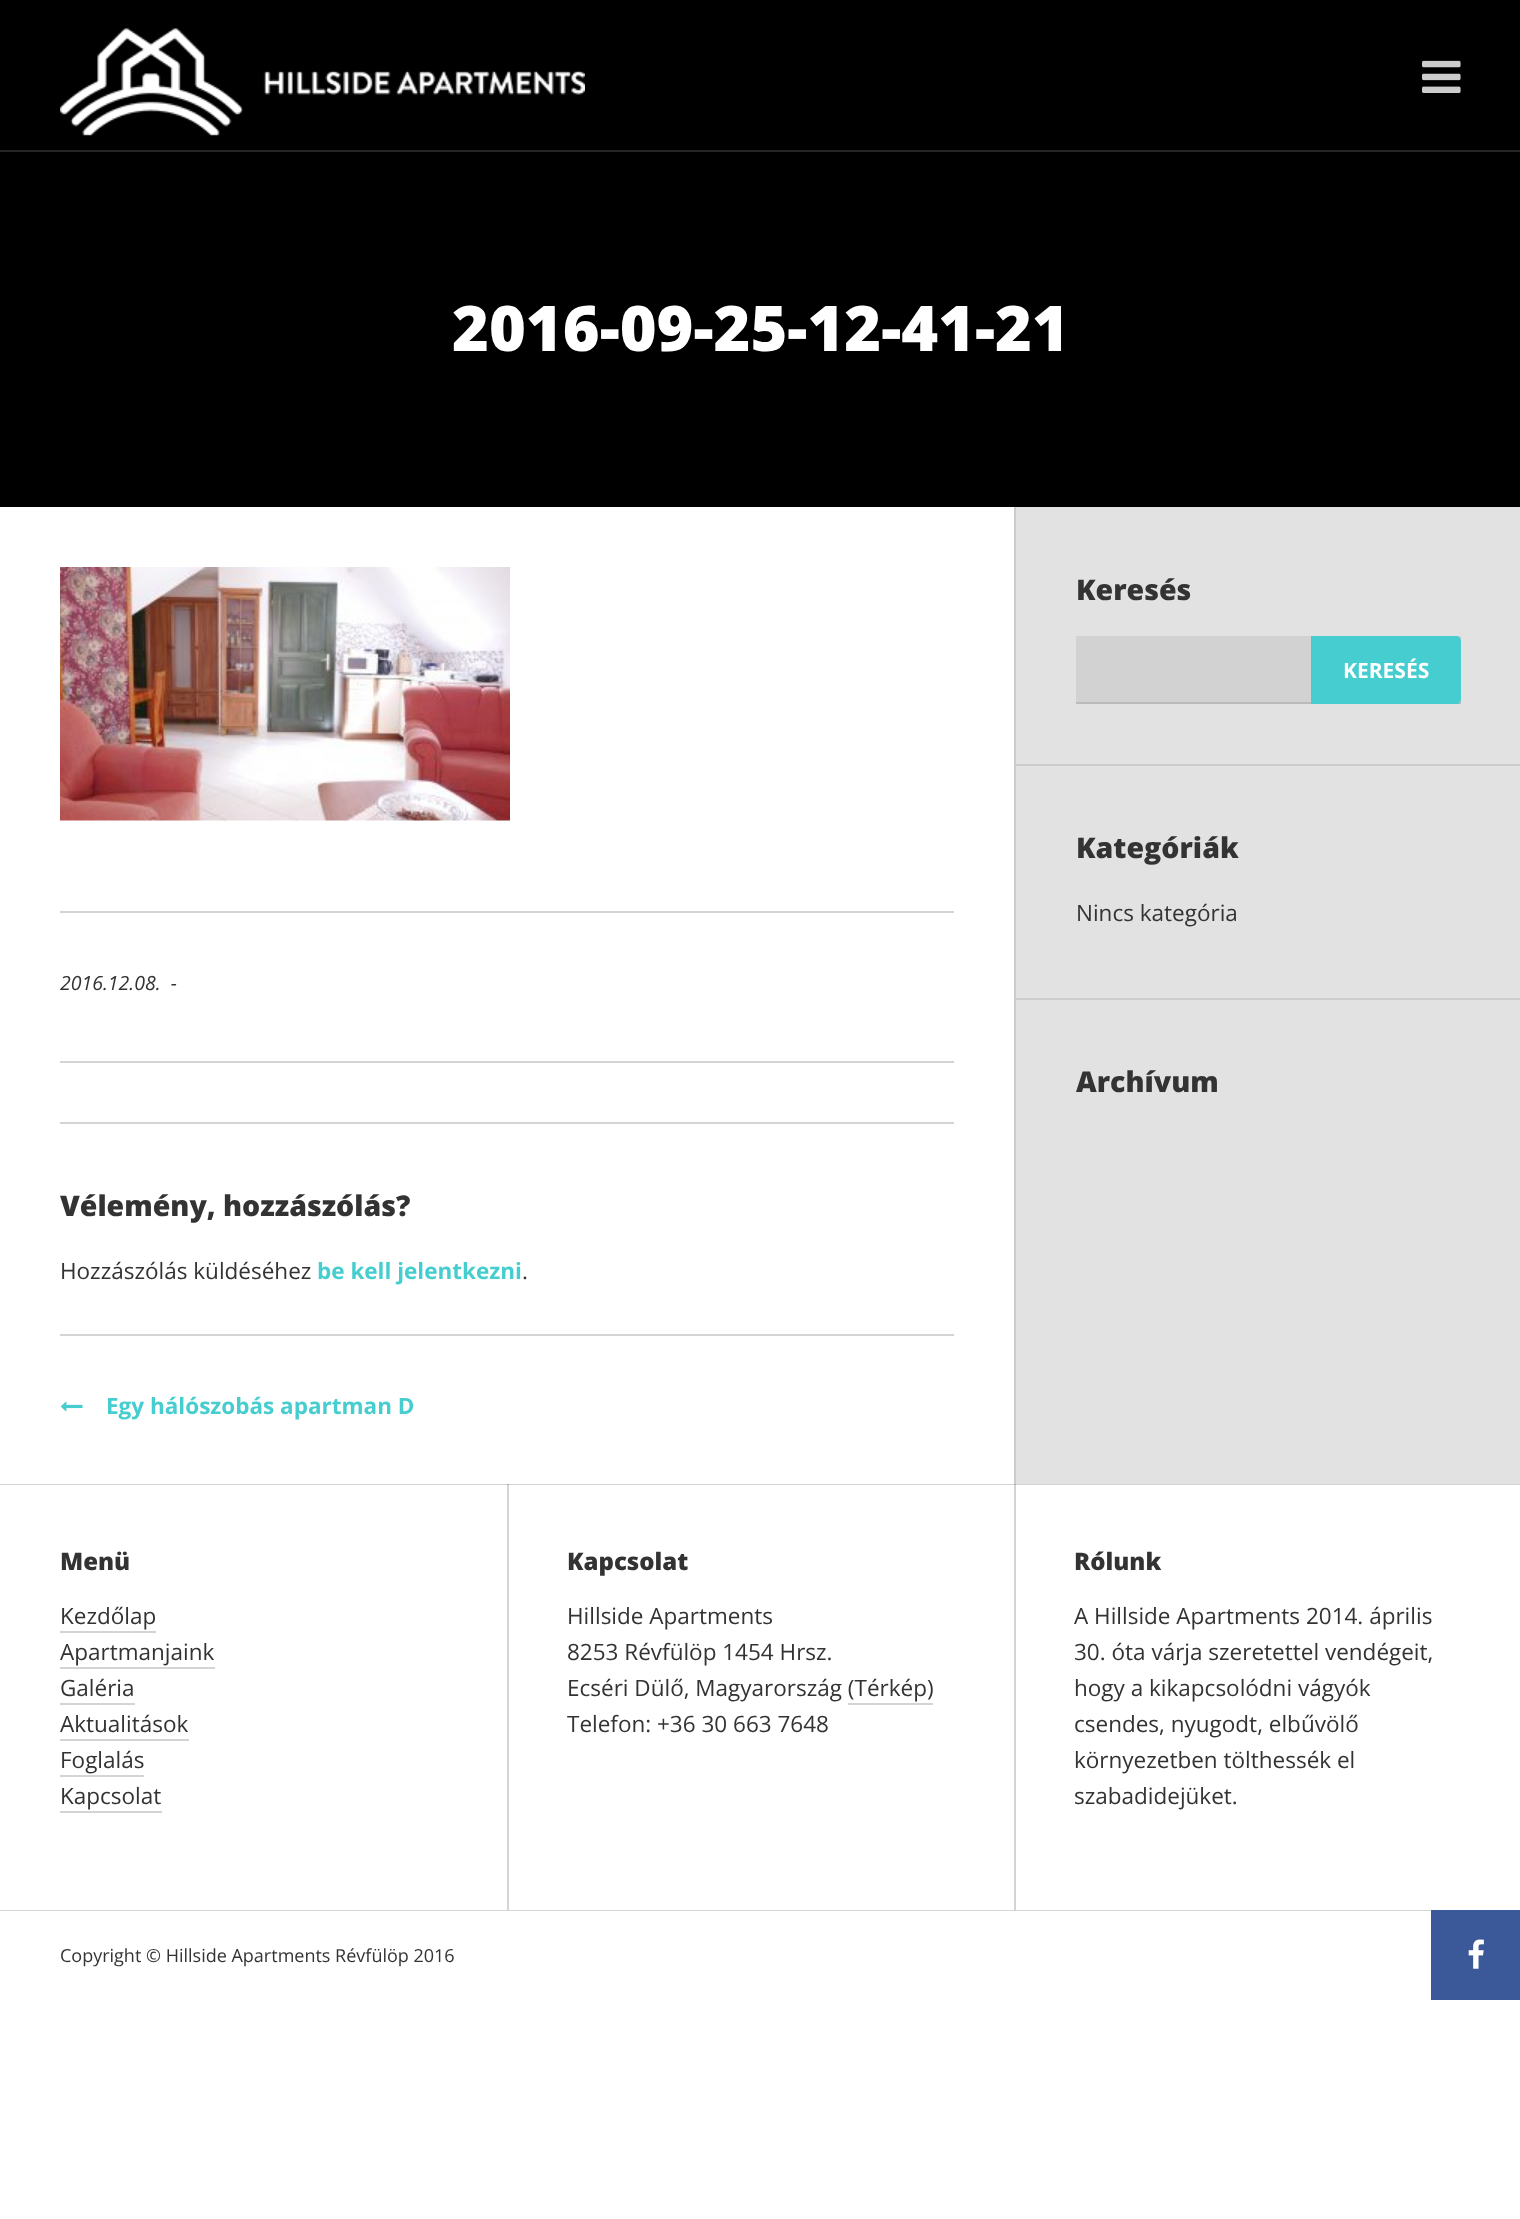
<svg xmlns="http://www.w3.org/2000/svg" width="1520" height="2219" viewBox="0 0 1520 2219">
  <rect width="100%" height="100%" fill="#ffffff"/>
  <rect x="1014" y="1484" width="2" height="426" fill="#d4d4d4"/>
  <rect x="507" y="1484" width="2" height="426" fill="#d4d4d4"/>
  <rect x="0" y="0" width="1520" height="507" fill="#000000"/>
  <rect x="0" y="150" width="1520" height="2" fill="#262626"/>
  <image x="60" y="28" width="525" height="108" href="img1.png"/>
  <image x="1422" y="60" width="39" height="33" href="img2.png"/>
  <text x="452" y="351" font-family="Open Sans" font-size="63" font-weight="800" fill="#ffffff">2016-09-25-12-41-21</text>
  <rect x="0" y="1484" width="1520" height="1" fill="#d4d4d4"/>
  <rect x="1014" y="1484" width="2" height="1" fill="#b0b0b0"/>
  <rect x="507" y="1484" width="2" height="1" fill="#b0b0b0"/>
  <rect x="1016" y="507" width="504" height="977" fill="#e2e2e2"/>
  <rect x="1014" y="507" width="2" height="977" fill="#cccccc"/>
  <text x="1076" y="600" font-family="Open Sans" font-size="28.5" font-weight="800" fill="#333333">Keresés</text>
  <rect x="1076" y="636" width="385" height="66" fill="#d2d2d2"/>
  <rect x="1076" y="702" width="385" height="2" fill="#bbbbbb"/>
  <path d="M1311 636H1456C1459 636 1461 638 1461 641V699C1461 702 1459 704 1456 704H1311Z" fill="#46cdcf"/>
  <text x="1343" y="678" font-family="Open Sans" font-size="21" font-weight="bold" fill="#ffffff">KERESÉS</text>
  <rect x="1016" y="764" width="504" height="2" fill="#cccccc"/>
  <text x="1076" y="858" font-family="Open Sans" font-size="28.5" font-weight="800" fill="#333333">Kategóriák</text>
  <text x="1076" y="921" font-family="Open Sans" font-size="22.5" fill="#333333">Nincs kategória</text>
  <rect x="1016" y="998" width="504" height="2" fill="#cccccc"/>
  <text x="1076" y="1092" font-family="Open Sans" font-size="28.5" font-weight="800" fill="#333333">Archívum</text>
  <image x="60" y="567" width="450" height="254" href="img3.png"/>
  <rect x="60" y="911" width="894" height="2" fill="#d4d4d4"/>
  <text x="60" y="990" font-family="Open Sans" font-size="19.5" font-style="italic" fill="#333333" xml:space="preserve">2016.12.08.  -</text>
  <rect x="60" y="1061" width="894" height="2" fill="#d4d4d4"/>
  <rect x="60" y="1122" width="894" height="2" fill="#d4d4d4"/>
  <text x="60" y="1216" font-family="Open Sans" font-size="28.5" font-weight="800" fill="#333333">Vélemény, hozzászólás?</text>
  <text x="60" y="1279" font-family="Open Sans" font-size="22.5" fill="#333333">Hozzászólás küldéséhez</text>
  <text x="317" y="1279" font-family="Open Sans" font-size="22.5" font-weight="bold" fill="#46cdcf">be kell jelentkezni</text>
  <text x="522" y="1279" font-family="Open Sans" font-size="22.5" fill="#333333">.</text>
  <rect x="60" y="1334" width="894" height="2" fill="#d4d4d4"/>
  <image x="60" y="1401" width="23" height="11" href="img4.png"/>
  <text x="106" y="1414" font-family="Open Sans" font-size="22.5" font-weight="bold" fill="#46cdcf">Egy hálószobás apartman D</text>
  <rect x="0" y="1910" width="1431" height="1" fill="#d4d4d4"/>
  <text x="60" y="1570" font-family="Open Sans" font-size="24" font-weight="800" fill="#333333">Menü</text>
  <text x="60" y="1624" font-family="Open Sans" font-size="22.5" fill="#333333">Kezdőlap</text>
  <rect x="60" y="1631" width="96" height="2" fill="#d4d4d4"/>
  <text x="60" y="1660" font-family="Open Sans" font-size="22.5" fill="#333333">Apartmanjaink</text>
  <rect x="60" y="1667" width="155" height="2" fill="#d4d4d4"/>
  <text x="60" y="1696" font-family="Open Sans" font-size="22.5" fill="#333333">Galéria</text>
  <rect x="60" y="1703" width="75" height="2" fill="#d4d4d4"/>
  <text x="60" y="1732" font-family="Open Sans" font-size="22.5" fill="#333333">Aktualitások</text>
  <rect x="60" y="1739" width="129" height="2" fill="#d4d4d4"/>
  <text x="60" y="1768" font-family="Open Sans" font-size="22.5" fill="#333333">Foglalás</text>
  <rect x="60" y="1775" width="84" height="2" fill="#d4d4d4"/>
  <text x="60" y="1804" font-family="Open Sans" font-size="22.5" fill="#333333">Kapcsolat</text>
  <rect x="60" y="1811" width="102" height="2" fill="#d4d4d4"/>
  <text x="567" y="1570" font-family="Open Sans" font-size="24" font-weight="800" fill="#333333">Kapcsolat</text>
  <text x="567" y="1624" font-family="Open Sans" font-size="22.5" fill="#333333">Hillside Apartments</text>
  <text x="567" y="1660" font-family="Open Sans" font-size="22.5" fill="#333333">8253 Révfülöp 1454 Hrsz.</text>
  <text x="567" y="1696" font-family="Open Sans" font-size="22.5" fill="#333333">Ecséri Dülő, Magyarország (Térkép)</text>
  <rect x="848" y="1703" width="85" height="2" fill="#d4d4d4"/>
  <text x="567" y="1732" font-family="Open Sans" font-size="22.5" fill="#333333">Telefon: +36 30 663 7648</text>
  <text x="1074" y="1570" font-family="Open Sans" font-size="24" font-weight="800" fill="#333333">Rólunk</text>
  <text x="1074" y="1624" font-family="Open Sans" font-size="22.5" fill="#333333">A Hillside Apartments 2014. április</text>
  <text x="1074" y="1660" font-family="Open Sans" font-size="22.5" fill="#333333">30. óta várja szeretettel vendégeit,</text>
  <text x="1074" y="1696" font-family="Open Sans" font-size="22.5" fill="#333333">hogy a kikapcsolódni vágyók</text>
  <text x="1074" y="1732" font-family="Open Sans" font-size="22.5" fill="#333333">csendes, nyugodt, elbűvölő</text>
  <text x="1074" y="1768" font-family="Open Sans" font-size="22.5" fill="#333333">környezetben tölthessék el</text>
  <text x="1074" y="1804" font-family="Open Sans" font-size="22.5" fill="#333333">szabadidejüket.</text>
  <text x="60" y="1962" font-family="Open Sans" font-size="18" fill="#333333">Copyright © Hillside Apartments Révfülöp 2016</text>
  <rect x="1431" y="1910" width="89" height="90" fill="#3b5998"/>
  <image x="1468" y="1939" width="16" height="30" href="img5.png"/>
</svg>
